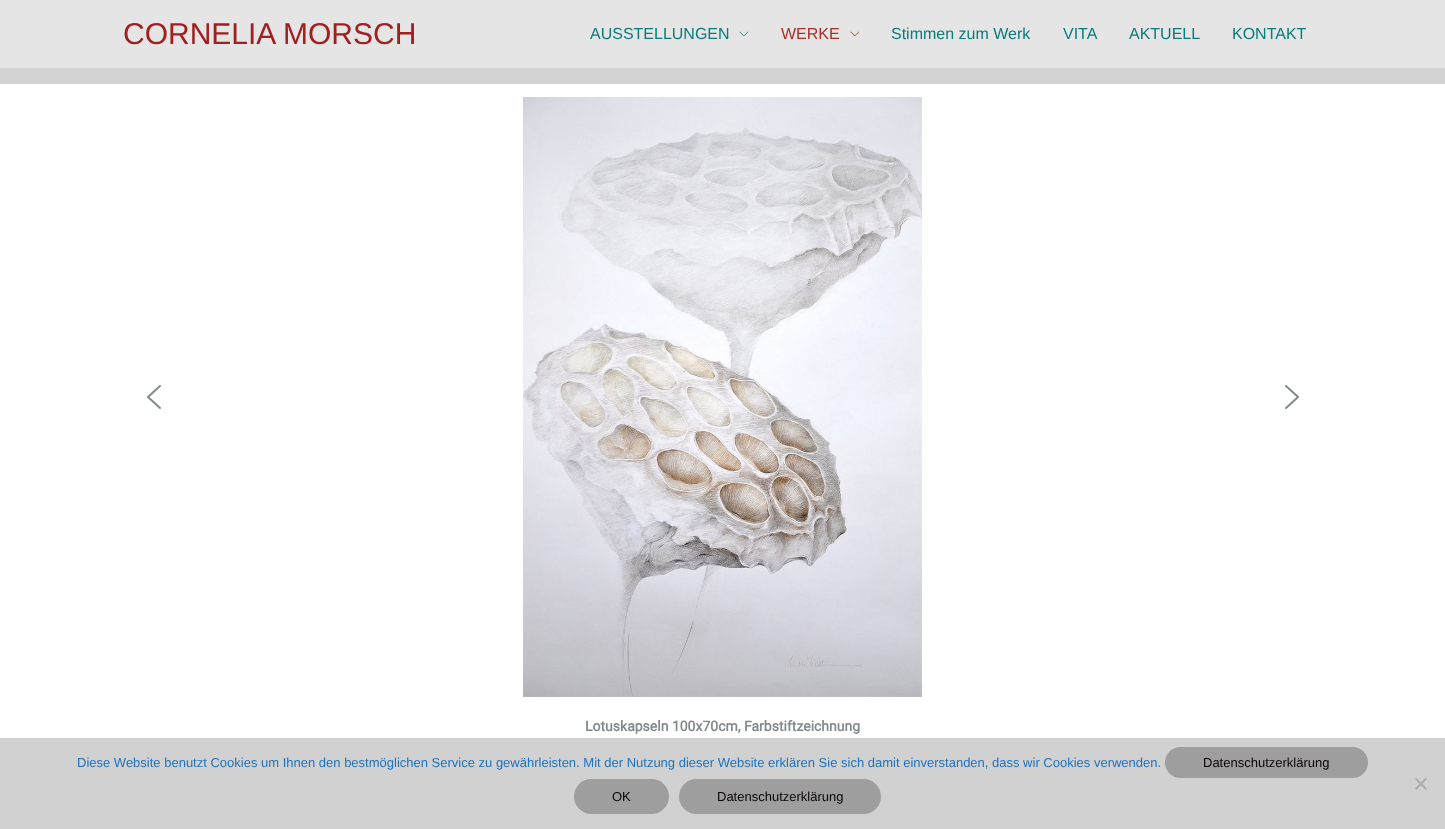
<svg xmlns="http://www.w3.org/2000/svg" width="1445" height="829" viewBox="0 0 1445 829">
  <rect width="100%" height="100%" fill="#ffffff"/>
  <rect x="0" y="0" width="1445" height="68" fill="#e5e5e5"/>
  <rect x="0" y="68" width="1445" height="16" fill="#d3d3d3"/>
  <text x="123" y="44" font-family="Liberation Sans" font-size="30" fill="#a02020">CORNELIA MORSCH</text>
  <text x="590" y="39" font-family="Liberation Sans" font-size="16" fill="#087c7b">AUSSTELLUNGEN</text>
  <image x="739" y="31" width="9" height="6" href="img1.png"/>
  <text x="781" y="39" font-family="Liberation Sans" font-size="16" fill="#ad3027">WERKE</text>
  <image x="850" y="31" width="9" height="6" href="img2.png"/>
  <text x="891" y="39" font-family="Liberation Sans" font-size="16" fill="#087c7b">Stimmen zum Werk</text>
  <text x="1063" y="39" font-family="Liberation Sans" font-size="16" fill="#087c7b">VITA</text>
  <text x="1129" y="39" font-family="Liberation Sans" font-size="16" fill="#087c7b">AKTUELL</text>
  <text x="1232" y="39" font-family="Liberation Sans" font-size="16" fill="#087c7b">KONTAKT</text>
  <image x="147" y="385" width="14" height="24" href="img3.png"/>
  <image x="523" y="97" width="399" height="600" href="img4.png"/>
  <image x="1285" y="385" width="14" height="24" href="img5.png"/>
  <text x="585" y="731" font-family="Roboto" font-size="14" font-weight="bold" fill="#81898d">Lotuskapseln 100x70cm, Farbstiftzeichnung</text>
  <rect x="0" y="738" width="1445" height="91" fill="#d1d1d1"/>
  <text x="77" y="767" font-family="Liberation Sans" font-size="13" fill="#1e73be">Diese Website benutzt Cookies um Ihnen den bestmöglichen Service zu gewährleisten. Mit der Nutzung dieser Website erklären Sie sich damit einverstanden, dass wir Cookies verwenden.</text>
  <rect x="1165" y="747" width="203" height="31" rx="15.5" fill="#9f9e9e"/>
  <text x="1203" y="767" font-family="Liberation Sans" font-size="13" fill="#0a0505">Datenschutzerklärung</text>
  <path d="M1425.5 778L1427 779L1416.5 790L1415 788.5Z" fill="#a9a9a9"/>
  <path d="M1415 779L1416.5 778L1427 788.5L1425.5 790Z" fill="#a9a9a9"/>
  <rect x="574" y="779" width="95" height="35" rx="17.5" fill="#9f9e9e"/>
  <text x="612" y="801" font-family="Liberation Sans" font-size="13" fill="#0a0505">OK</text>
  <rect x="679" y="779" width="202" height="35" rx="17.5" fill="#9f9e9e"/>
  <text x="717" y="801" font-family="Liberation Sans" font-size="13" fill="#0a0505">Datenschutzerklärung</text>
</svg>
